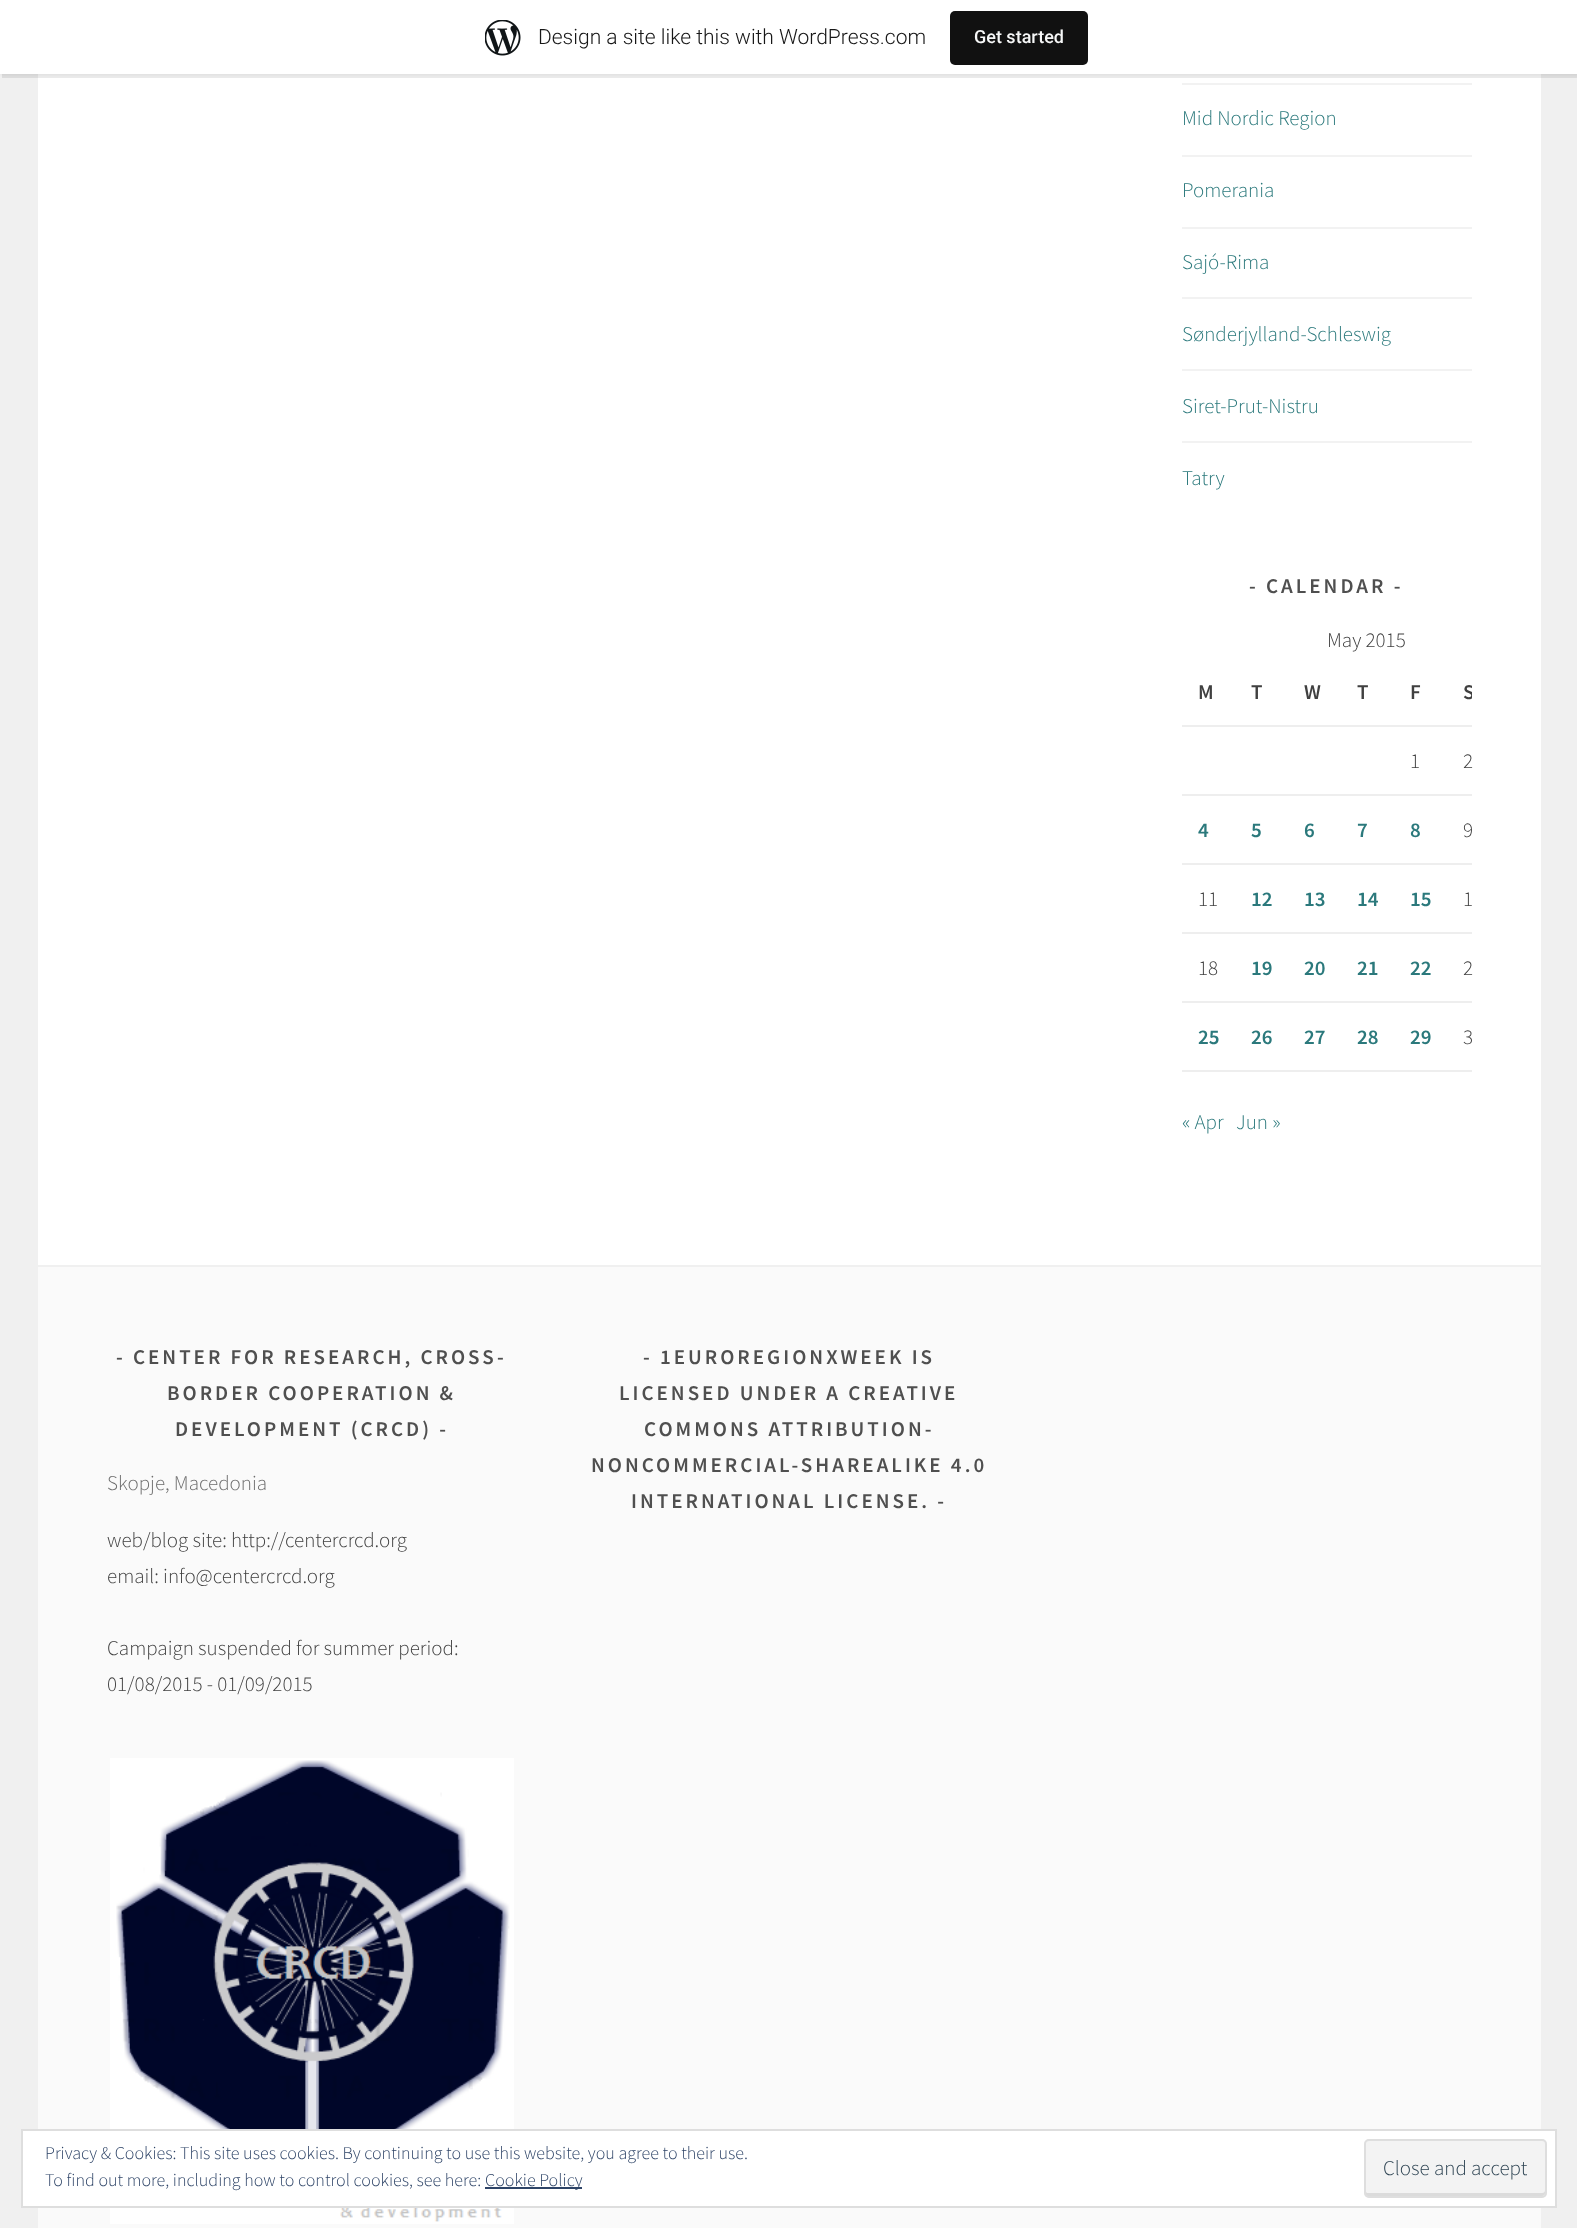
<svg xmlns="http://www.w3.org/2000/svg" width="1577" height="2228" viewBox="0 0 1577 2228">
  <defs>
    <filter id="blur1" x="-50%" y="-200%" width="200%" height="500%"><feGaussianBlur stdDeviation="1.5"/></filter>
    <clipPath id="clip1"><rect x="1182" y="0" width="290" height="1193"/></clipPath>
  </defs>
  <rect width="100%" height="100%" fill="#f0f0f0"/>
  <rect x="38" y="74" width="1503" height="1191" fill="#ffffff"/>
  <rect x="0" y="2" width="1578" height="73" fill="#000000" fill-opacity="0.05" filter="url(#blur1)"/>
  <path d="M2 74V78H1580V5H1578V74Z" fill="#000000" fill-opacity="0.08"/>
  <rect x="0" y="0" width="1577" height="74" fill="#ffffff"/>
  <image x="485" y="20" width="36" height="36" href="img1.png"/>
  <text x="538" y="44" font-family="Roboto" font-size="21" font-weight="300" fill="#171717">Design a site like this with WordPress.com</text>
  <rect x="950" y="11" width="138" height="54" rx="5" fill="#111111"/>
  <text x="974" y="43" font-family="Roboto" font-size="18" font-weight="500" fill="#f6f7f7">Get started</text>
  <rect x="1182" y="83" width="290" height="2" fill="#f2f2f2"/>
  <text x="1182" y="125" font-family="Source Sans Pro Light" font-size="21" font-weight="300" fill="#2b797c">Mid Nordic Region</text>
  <rect x="1182" y="155" width="290" height="2" fill="#f2f2f2"/>
  <text x="1182" y="197" font-family="Source Sans Pro Light" font-size="21" font-weight="300" fill="#2b797c">Pomerania</text>
  <rect x="1182" y="227" width="290" height="2" fill="#f2f2f2"/>
  <text x="1182" y="269" font-family="Source Sans Pro Light" font-size="21" font-weight="300" fill="#2b797c">Sajó-Rima</text>
  <rect x="1182" y="297" width="290" height="2" fill="#f2f2f2"/>
  <text x="1182" y="341" font-family="Source Sans Pro Light" font-size="21" font-weight="300" fill="#2b797c">Sønderjylland-Schleswig</text>
  <rect x="1182" y="369" width="290" height="2" fill="#f2f2f2"/>
  <text x="1182" y="413" font-family="Source Sans Pro Light" font-size="21" font-weight="300" fill="#2b797c">Siret-Prut-Nistru</text>
  <rect x="1182" y="441" width="290" height="2" fill="#f2f2f2"/>
  <text x="1182" y="485" font-family="Source Sans Pro Light" font-size="21" font-weight="300" fill="#2b797c">Tatry</text>
  <text x="1249" y="593" font-family="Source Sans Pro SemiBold" font-size="21" font-weight="600" letter-spacing="3" fill="#4f4f4f">- CALENDAR -</text>
  <rect x="1182" y="1070" width="290" height="2" fill="#eeeeee"/>
  <text x="1327" y="647" font-family="Source Sans Pro Light" font-size="21" font-weight="300" fill="#404040">May 2015</text>
  <text x="1198" y="699" font-family="Source Sans Pro SemiBold" font-size="21" font-weight="600" fill="#404040">M</text>
  <text x="1251" y="699" font-family="Source Sans Pro SemiBold" font-size="21" font-weight="600" fill="#404040">T</text>
  <text x="1304" y="699" font-family="Source Sans Pro SemiBold" font-size="21" font-weight="600" fill="#404040">W</text>
  <text x="1357" y="699" font-family="Source Sans Pro SemiBold" font-size="21" font-weight="600" fill="#404040">T</text>
  <text x="1410" y="699" font-family="Source Sans Pro SemiBold" font-size="21" font-weight="600" fill="#404040">F</text>
  <g clip-path="url(#clip1)">
    <text x="1463" y="699" font-family="Source Sans Pro SemiBold" font-size="21" font-weight="600" fill="#404040">S</text>
  </g>
  <rect x="1182" y="725" width="290" height="2" fill="#eeeeee"/>
  <text x="1410" y="768" font-family="Source Sans Pro Light" font-size="21" font-weight="300" fill="#404040">1</text>
  <text x="1463" y="768" font-family="Source Sans Pro Light" font-size="21" font-weight="300" fill="#404040">2</text>
  <rect x="1182" y="794" width="290" height="2" fill="#eeeeee"/>
  <text x="1198" y="837" font-family="Source Sans Pro SemiBold" font-size="21" font-weight="600" fill="#2b797c">4</text>
  <text x="1251" y="837" font-family="Source Sans Pro SemiBold" font-size="21" font-weight="600" fill="#2b797c">5</text>
  <text x="1304" y="837" font-family="Source Sans Pro SemiBold" font-size="21" font-weight="600" fill="#2b797c">6</text>
  <text x="1357" y="837" font-family="Source Sans Pro SemiBold" font-size="21" font-weight="600" fill="#2b797c">7</text>
  <text x="1410" y="837" font-family="Source Sans Pro SemiBold" font-size="21" font-weight="600" fill="#2b797c">8</text>
  <text x="1463" y="837" font-family="Source Sans Pro Light" font-size="21" font-weight="300" fill="#404040">9</text>
  <rect x="1182" y="863" width="290" height="2" fill="#eeeeee"/>
  <text x="1198" y="906" font-family="Source Sans Pro Light" font-size="21" font-weight="300" fill="#404040">11</text>
  <text x="1251" y="906" font-family="Source Sans Pro SemiBold" font-size="21" font-weight="600" fill="#2b797c">12</text>
  <text x="1304" y="906" font-family="Source Sans Pro SemiBold" font-size="21" font-weight="600" fill="#2b797c">13</text>
  <text x="1357" y="906" font-family="Source Sans Pro SemiBold" font-size="21" font-weight="600" fill="#2b797c">14</text>
  <text x="1410" y="906" font-family="Source Sans Pro SemiBold" font-size="21" font-weight="600" fill="#2b797c">15</text>
  <text x="1463" y="906" font-family="Source Sans Pro Light" font-size="21" font-weight="300" fill="#404040">1</text>
  <rect x="1182" y="932" width="290" height="2" fill="#eeeeee"/>
  <text x="1198" y="975" font-family="Source Sans Pro Light" font-size="21" font-weight="300" fill="#404040">18</text>
  <text x="1251" y="975" font-family="Source Sans Pro SemiBold" font-size="21" font-weight="600" fill="#2b797c">19</text>
  <text x="1304" y="975" font-family="Source Sans Pro SemiBold" font-size="21" font-weight="600" fill="#2b797c">20</text>
  <text x="1357" y="975" font-family="Source Sans Pro SemiBold" font-size="21" font-weight="600" fill="#2b797c">21</text>
  <text x="1410" y="975" font-family="Source Sans Pro SemiBold" font-size="21" font-weight="600" fill="#2b797c">22</text>
  <text x="1463" y="975" font-family="Source Sans Pro Light" font-size="21" font-weight="300" fill="#404040">2</text>
  <rect x="1182" y="1001" width="290" height="2" fill="#eeeeee"/>
  <text x="1198" y="1044" font-family="Source Sans Pro SemiBold" font-size="21" font-weight="600" fill="#2b797c">25</text>
  <text x="1251" y="1044" font-family="Source Sans Pro SemiBold" font-size="21" font-weight="600" fill="#2b797c">26</text>
  <text x="1304" y="1044" font-family="Source Sans Pro SemiBold" font-size="21" font-weight="600" fill="#2b797c">27</text>
  <text x="1357" y="1044" font-family="Source Sans Pro SemiBold" font-size="21" font-weight="600" fill="#2b797c">28</text>
  <text x="1410" y="1044" font-family="Source Sans Pro SemiBold" font-size="21" font-weight="600" fill="#2b797c">29</text>
  <text x="1463" y="1044" font-family="Source Sans Pro Light" font-size="21" font-weight="300" fill="#404040">3</text>
  <text x="1182" y="1129" font-family="Source Sans Pro Light" font-size="21" font-weight="300" fill="#2b797c">« Apr</text>
  <text x="1236" y="1129" font-family="Source Sans Pro Light" font-size="21" font-weight="300" fill="#2b797c">Jun »</text>
  <rect x="38" y="1267" width="1503" height="961" fill="#fafafa"/>
  <text x="116" y="1364" font-family="Source Sans Pro SemiBold" font-size="21" font-weight="600" letter-spacing="3" fill="#4f4f4f">- CENTER FOR RESEARCH, CROSS-</text>
  <text x="167" y="1400" font-family="Source Sans Pro SemiBold" font-size="21" font-weight="600" letter-spacing="3" fill="#4f4f4f">BORDER COOPERATION &amp;</text>
  <text x="175" y="1436" font-family="Source Sans Pro SemiBold" font-size="21" font-weight="600" letter-spacing="3" fill="#4f4f4f">DEVELOPMENT (CRCD) -</text>
  <text x="107" y="1490" font-family="Source Sans Pro Light" font-size="21" font-weight="300" fill="#6d6d6d">Skopje, Macedonia</text>
  <text x="107" y="1547" font-family="Source Sans Pro Light" font-size="21" font-weight="300" fill="#404040">web/blog site: http://centercrcd.org</text>
  <text x="107" y="1583" font-family="Source Sans Pro Light" font-size="21" font-weight="300" fill="#404040">email: info@centercrcd.org</text>
  <text x="107" y="1655" font-family="Source Sans Pro Light" font-size="21" font-weight="300" fill="#404040">Campaign suspended for summer period:</text>
  <text x="107" y="1691" font-family="Source Sans Pro Light" font-size="21" font-weight="300" fill="#404040">01/08/2015 - 01/09/2015</text>
  <image x="110" y="1758" width="404" height="466" href="img2.png"/>
  <text x="643" y="1364" font-family="Source Sans Pro SemiBold" font-size="21" font-weight="600" letter-spacing="3" fill="#4f4f4f">- 1EUROREGIONXWEEK IS</text>
  <text x="619" y="1400" font-family="Source Sans Pro SemiBold" font-size="21" font-weight="600" letter-spacing="3" fill="#4f4f4f">LICENSED UNDER A CREATIVE</text>
  <text x="644" y="1436" font-family="Source Sans Pro SemiBold" font-size="21" font-weight="600" letter-spacing="3" fill="#4f4f4f">COMMONS ATTRIBUTION-</text>
  <text x="591" y="1472" font-family="Source Sans Pro SemiBold" font-size="21" font-weight="600" letter-spacing="3" fill="#4f4f4f">NONCOMMERCIAL-SHAREALIKE 4.0</text>
  <text x="631" y="1508" font-family="Source Sans Pro SemiBold" font-size="21" font-weight="600" letter-spacing="3" fill="#4f4f4f">INTERNATIONAL LICENSE. -</text>
  <rect x="22" y="2130" width="1534" height="77" fill="#ffffff" stroke="#dedede" stroke-width="2"/>
  <text x="45" y="2159" font-family="Source Sans Pro Light" font-size="18" font-weight="300" fill="#2e4467">Privacy &amp; Cookies: This site uses cookies. By continuing to use this website, you agree to their use.</text>
  <text x="45" y="2186" font-family="Source Sans Pro Light" font-size="18" font-weight="300" fill="#2e4467">To find out more, including how to control cookies, see here:</text>
  <rect x="485" y="2187" width="97" height="2" fill="#2e4467"/>
  <text x="485" y="2186" font-family="Source Sans Pro Light" font-size="18" font-weight="300" fill="#2e4467">Cookie Policy</text>
  <rect x="1364" y="2139" width="183" height="59" rx="5" fill="#f3f3f3"/>
  <path d="M1365 2190V2193C1365 2195 1366 2196 1368 2196H1542C1544 2196 1545 2195 1545 2193V2190C1545 2192 1544 2193 1542 2193H1367L1366 2192Z" fill="#dbdbdb"/>
  <rect x="1365" y="2140" width="181" height="57" rx="4" fill="none" stroke="#dedede" stroke-width="2"/>
  <text x="1383" y="2175" font-family="Source Sans Pro Light" font-size="21" font-weight="300" fill="#2e4453">Close and accept</text>
</svg>
